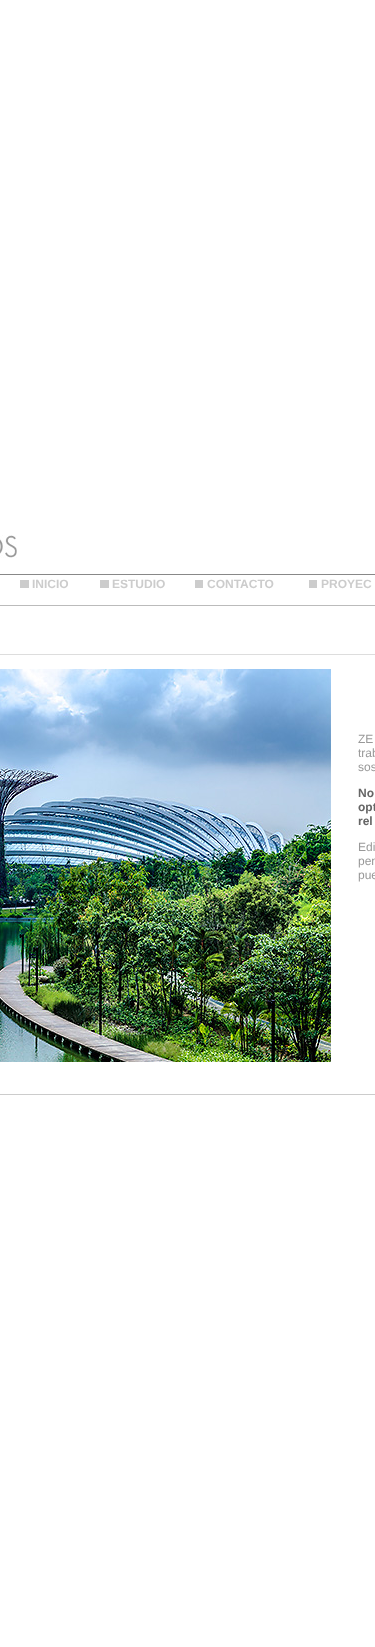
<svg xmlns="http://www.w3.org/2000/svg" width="375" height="1647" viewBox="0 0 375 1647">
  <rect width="100%" height="100%" fill="#ffffff"/>
  <image x="0" y="535" width="17" height="23" href="img1.png"/>
  <rect x="0" y="574" width="375" height="1" fill="#888888"/>
  <rect x="0" y="605" width="375" height="1" fill="#bbbbbb"/>
  <rect x="20" y="580" width="9" height="8" fill="#cccccc"/>
  <text x="32" y="588" font-family="Liberation Sans" font-size="12" font-weight="bold" fill="#cccccc">INICIO</text>
  <rect x="100" y="580" width="9" height="8" fill="#cccccc"/>
  <text x="112" y="588" font-family="Liberation Sans" font-size="12" font-weight="bold" fill="#cccccc">ESTUDIO</text>
  <rect x="195" y="580" width="8" height="8" fill="#cccccc"/>
  <text x="207" y="588" font-family="Liberation Sans" font-size="12" font-weight="bold" fill="#cccccc">CONTACTO</text>
  <rect x="309" y="580" width="8" height="8" fill="#cccccc"/>
  <text x="321" y="588" font-family="Liberation Sans" font-size="12" font-weight="bold" fill="#cccccc">PROYEC</text>
  <rect x="0" y="654" width="375" height="1" fill="#dddddd"/>
  <rect x="0" y="1094" width="375" height="1" fill="#cccccc"/>
  <image x="0" y="669" width="331" height="393" href="img2.png"/>
  <text x="358" y="743" word-spacing="3" font-family="Liberation Sans" font-size="12" fill="#999999">ZE</text>
  <text x="358" y="757" word-spacing="11" font-family="Liberation Sans" font-size="12" fill="#999999">trab</text>
  <text x="358" y="771" font-family="Liberation Sans" font-size="12" fill="#999999">sos</text>
  <text x="358" y="797" font-family="Liberation Sans" font-size="12" font-weight="bold" fill="#666666">No</text>
  <text x="358" y="811" word-spacing="1" font-family="Liberation Sans" font-size="12" font-weight="bold" fill="#666666">opt</text>
  <text x="358" y="825" font-family="Liberation Sans" font-size="12" font-weight="bold" fill="#666666">rel</text>
  <text x="358" y="851" word-spacing="10" font-family="Liberation Sans" font-size="12" fill="#999999">Edi</text>
  <text x="358" y="865" word-spacing="2" font-family="Liberation Sans" font-size="12" fill="#999999">pen</text>
  <text x="358" y="879" font-family="Liberation Sans" font-size="12" fill="#999999">pue</text>
</svg>
